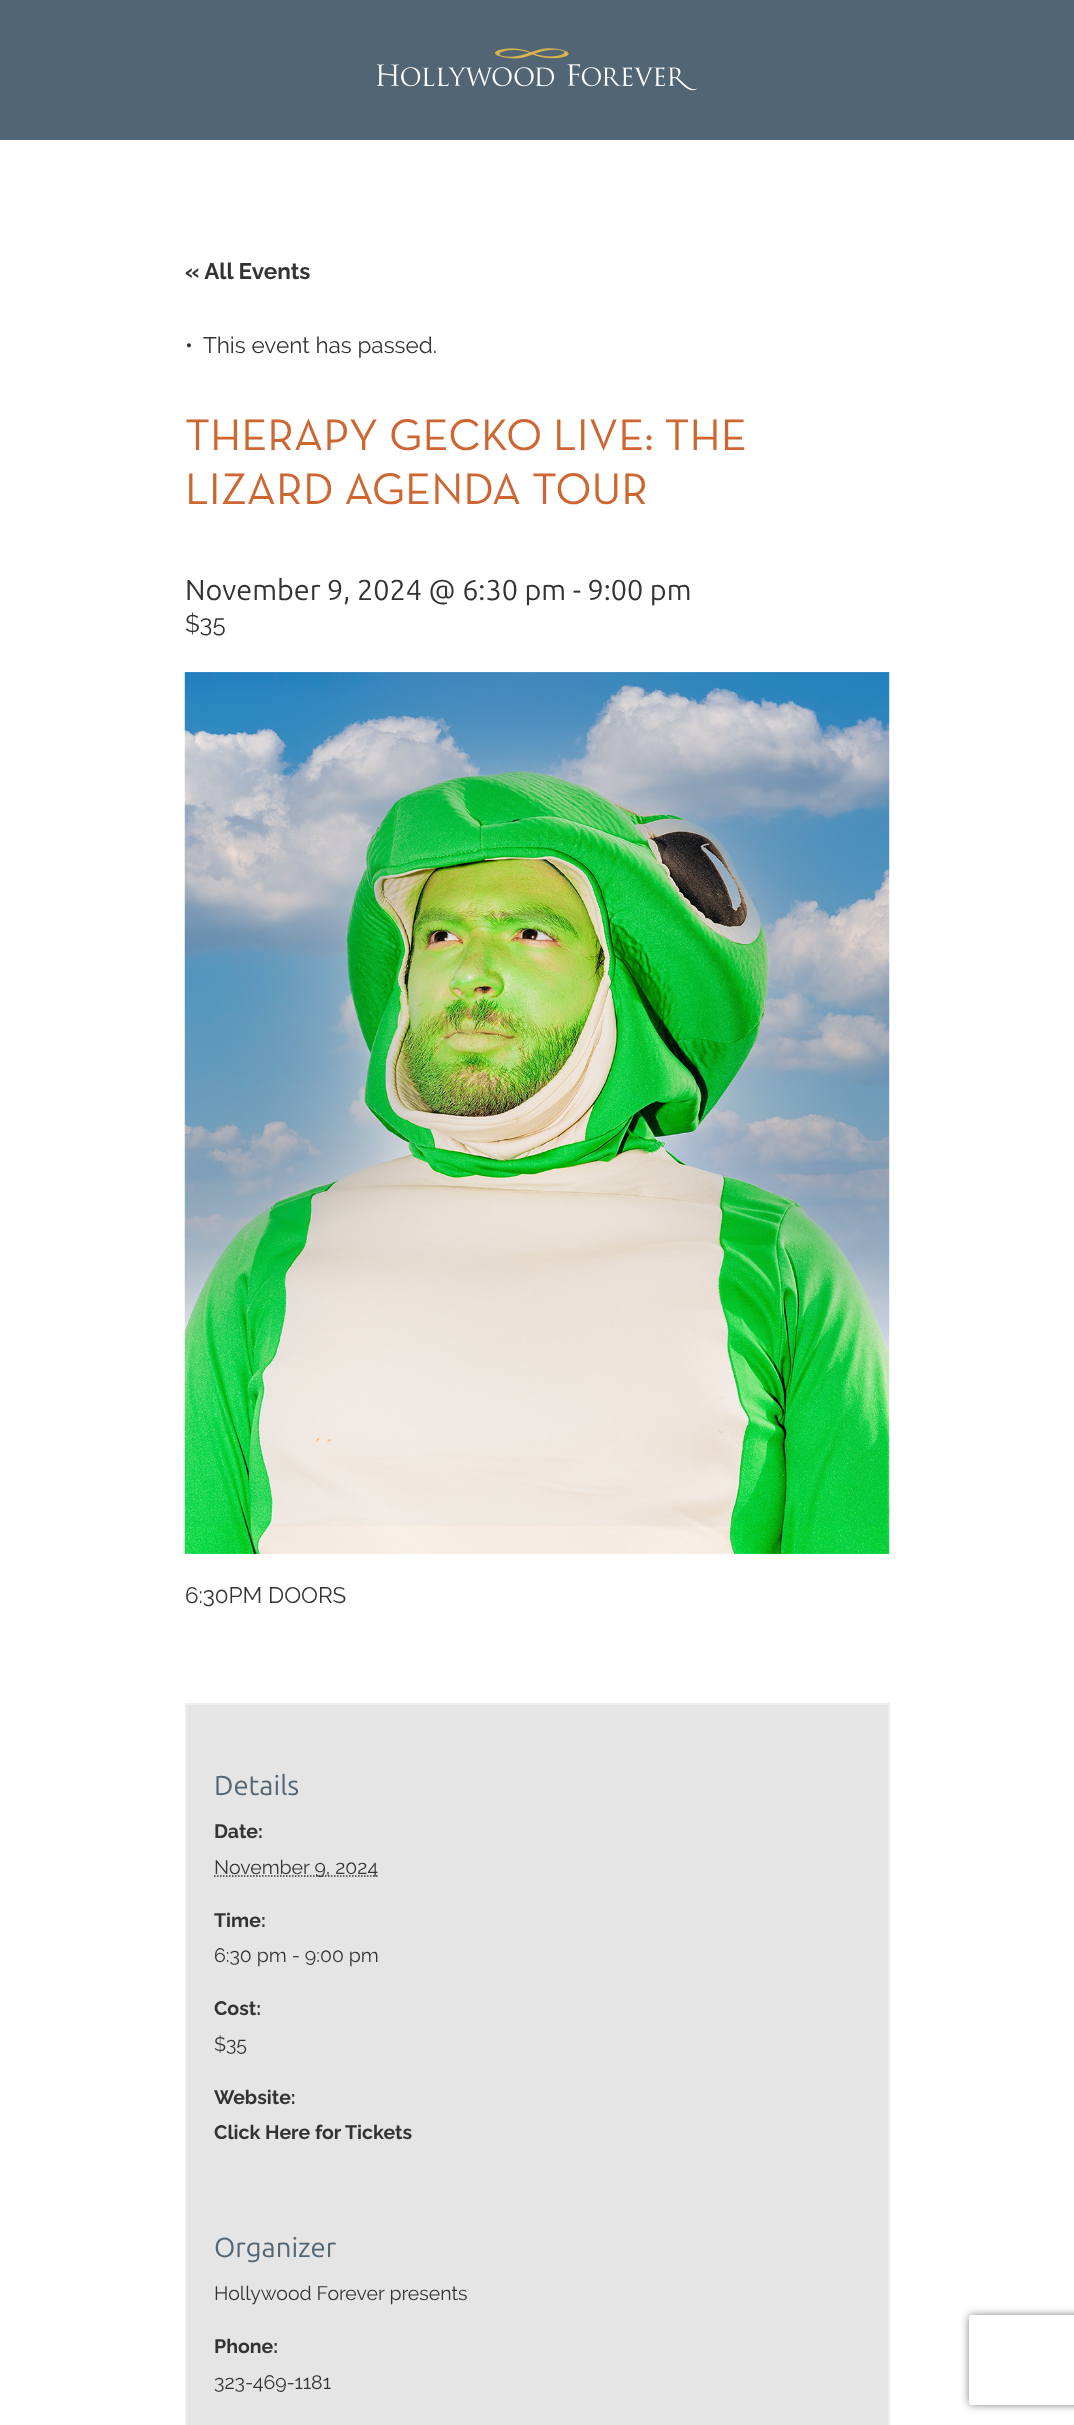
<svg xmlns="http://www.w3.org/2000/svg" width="1074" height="2425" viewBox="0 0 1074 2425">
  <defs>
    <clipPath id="clip1"><path d="M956 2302H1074V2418H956ZM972 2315H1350C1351.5 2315 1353 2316.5 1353 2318V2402C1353 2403.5 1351.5 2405 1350 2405H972C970.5 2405 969 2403.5 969 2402V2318C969 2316.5 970.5 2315 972 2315Z" clip-rule="evenodd"/></clipPath>
    <filter id="blur1" x="-50%" y="-200%" width="200%" height="500%"><feGaussianBlur stdDeviation="4"/></filter>
  </defs>
  <rect width="100%" height="100%" fill="#ffffff"/>
  <rect x="0" y="0" width="1074" height="140" fill="#526574"/>
  <image x="377" y="48" width="321" height="43" href="img1.png"/>
  <text x="185" y="279" font-family="Raleway" font-size="22.5" font-weight="bold" fill="#333333">« All Events</text>
  <text x="185" y="353" font-family="Raleway" font-size="22.5" fill="#333333">•</text>
  <text x="203" y="353" font-family="Raleway" font-size="22.5" fill="#333333">This event has passed.</text>
  <text x="185" y="450" font-family="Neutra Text" font-size="45" fill="#ce6632">THERAPY GECKO LIVE: THE</text>
  <text x="185" y="504" font-family="Neutra Text" font-size="45" fill="#ce6632">LIZARD AGENDA TOUR</text>
  <text x="185" y="600" font-family="Ubuntu" font-size="28.75" fill="#333333">November 9, 2024 @ 6:30 pm - 9:00 pm</text>
  <text x="185" y="632" font-family="Raleway" font-size="24" fill="#333333">$35</text>
  <image x="184" y="672" width="706" height="882" href="img2.png"/>
  <text x="185" y="1603" font-family="Raleway" font-size="22.5" fill="#333333">6:30PM DOORS</text>
  <rect x="186" y="1704" width="703" height="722" fill="#e5e5e5" stroke="#eeeeee" stroke-width="2"/>
  <text x="214" y="1795" font-family="Ubuntu" font-size="27.5" fill="#526574">Details</text>
  <text x="214" y="1838" font-family="Raleway" font-size="19.5" font-weight="bold" fill="#333333">Date:</text>
  <path d="M214 1876H378" fill="none" stroke="#333333" stroke-width="1.5" stroke-dasharray="1.5 1.5"/>
  <text x="214" y="1874" font-family="Raleway" font-size="19.5" fill="#333333">November 9, 2024</text>
  <text x="214" y="1927" font-family="Raleway" font-size="19.5" font-weight="bold" fill="#333333">Time:</text>
  <text x="214" y="1962" font-family="Raleway" font-size="19.5" fill="#333333">6:30 pm - 9:00 pm</text>
  <text x="214" y="2015" font-family="Raleway" font-size="19.5" font-weight="bold" fill="#333333">Cost:</text>
  <text x="214" y="2051" font-family="Raleway" font-size="19.5" fill="#333333">$35</text>
  <text x="214" y="2104" font-family="Raleway" font-size="19.5" font-weight="bold" fill="#333333">Website:</text>
  <text x="214" y="2139" font-family="Raleway" font-size="19.5" font-weight="bold" fill="#333333">Click Here for Tickets</text>
  <text x="214" y="2257" font-family="Ubuntu" font-size="27.5" fill="#526574">Organizer</text>
  <text x="214" y="2300" font-family="Raleway" font-size="19.5" fill="#333333">Hollywood Forever presents</text>
  <text x="214" y="2353" font-family="Raleway" font-size="19.5" font-weight="bold" fill="#333333">Phone:</text>
  <text x="214" y="2389" font-family="Raleway" font-size="19.5" fill="#333333">323-469-1181</text>
  <g clip-path="url(#clip1)">
    <rect x="969" y="2315" width="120" height="90" rx="3" fill="#808080" filter="url(#blur1)"/>
  </g>
</svg>
